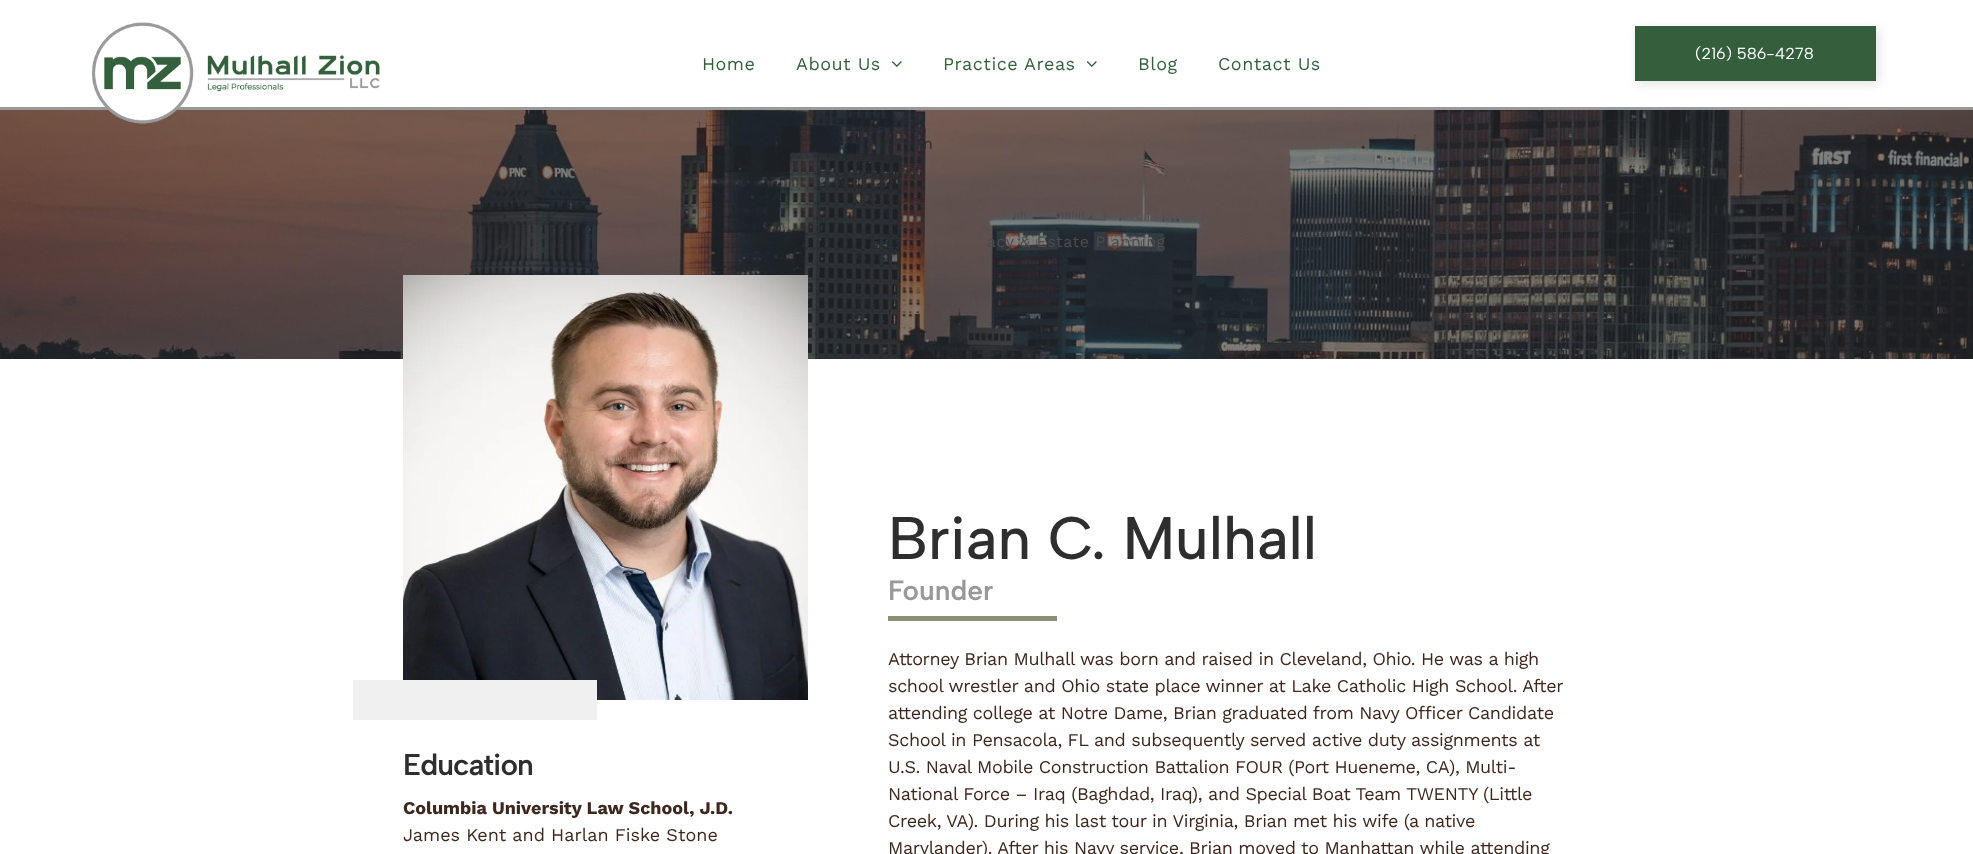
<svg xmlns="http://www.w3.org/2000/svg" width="1973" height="854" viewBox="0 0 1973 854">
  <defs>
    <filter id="blur1" x="-50%" y="-200%" width="200%" height="500%"><feGaussianBlur stdDeviation="5.5"/></filter>
  </defs>
  <rect width="100%" height="100%" fill="#ffffff"/>
  <rect x="0" y="107" width="1973" height="3" fill="#999999"/>
  <image x="0" y="110" width="1973" height="249" href="img3.png"/>
  <image x="91" y="22" width="289" height="102" href="img1.png"/>
  <rect x="1638" y="29" width="241" height="55" fill="#000000" fill-opacity="0.11" filter="url(#blur1)"/>
  <rect x="1635" y="26" width="241" height="55" fill="#355f3c"/>
  <text x="1695" y="59" font-family="Albert Sans" font-size="16" fill="#ffffff">(216) 586-4278</text>
  <text x="796" y="70" font-family="Work Sans" font-size="18" letter-spacing="0.5" fill="#355f3c">About Us</text>
  <image x="891" y="61" width="11" height="6" href="img2.png"/>
  <text x="923" y="149" font-family="Work Sans" font-size="16" letter-spacing="0.5" fill="#2e2e2e">n</text>
  <text x="1138" y="70" font-family="Work Sans" font-size="18" letter-spacing="0.5" fill="#355f3c">Blog</text>
  <text x="702" y="70" font-family="Work Sans" font-size="18" letter-spacing="0.5" fill="#355f3c">Home</text>
  <text x="943" y="70" font-family="Work Sans" font-size="18" letter-spacing="0.5" fill="#355f3c">Practice Areas</text>
  <image x="1086" y="61" width="11" height="6" href="img2.png"/>
  <text x="987" y="247" font-family="Work Sans" font-size="16" letter-spacing="0.5" fill="#4c4b4d">acy &amp; Estate Planning</text>
  <text x="1218" y="70" font-family="Work Sans" font-size="18" letter-spacing="0.5" fill="#355f3c">Contact Us</text>
  <image x="403" y="275" width="405" height="425" href="img4.png"/>
  <rect x="353" y="680" width="244" height="40" fill="#f0f0f0"/>
  <text x="403" y="775" font-family="Albert Sans" font-size="30" font-weight="600" letter-spacing="-1" fill="#2e2e2e">Education</text>
  <text x="403" y="814" font-family="Work Sans" font-size="18" font-weight="bold" fill="#3c281f">Columbia University Law School, J.D.</text>
  <text x="403" y="841" font-family="Work Sans" font-size="18" fill="#3c281f">James Kent and Harlan Fiske Stone</text>
  <text x="888" y="559" font-family="Albert Sans" font-size="60" font-weight="500" fill="#2e2e2e">Brian C. Mulhall</text>
  <text x="888" y="600" font-family="Albert Sans" font-size="28" font-weight="600" fill="#999999">Founder</text>
  <rect x="888" y="616" width="169" height="5" fill="#8a9172"/>
  <text x="888" y="665" font-family="Work Sans" font-size="18" letter-spacing="-0.35" fill="#3c281f">Attorney Brian Mulhall was born and raised in Cleveland, Ohio. He was a high</text>
  <text x="888" y="692" font-family="Work Sans" font-size="18" letter-spacing="-0.35" fill="#3c281f">school wrestler and Ohio state place winner at Lake Catholic High School. After</text>
  <text x="888" y="719" font-family="Work Sans" font-size="18" letter-spacing="-0.35" fill="#3c281f">attending college at Notre Dame, Brian graduated from Navy Officer Candidate</text>
  <text x="888" y="746" font-family="Work Sans" font-size="18" letter-spacing="-0.35" fill="#3c281f">School in Pensacola, FL and subsequently served active duty assignments at</text>
  <text x="888" y="773" font-family="Work Sans" font-size="18" letter-spacing="-0.35" fill="#3c281f">U.S. Naval Mobile Construction Battalion FOUR (Port Hueneme, CA), Multi-</text>
  <text x="888" y="800" font-family="Work Sans" font-size="18" letter-spacing="-0.35" fill="#3c281f">National Force – Iraq (Baghdad, Iraq), and Special Boat Team TWENTY (Little</text>
  <text x="888" y="827" font-family="Work Sans" font-size="18" letter-spacing="-0.35" fill="#3c281f">Creek, VA). During his last tour in Virginia, Brian met his wife (a native</text>
  <text x="888" y="854" font-family="Work Sans" font-size="18" letter-spacing="-0.35" fill="#3c281f">Marylander). After his Navy service, Brian moved to Manhattan while attending</text>
</svg>
